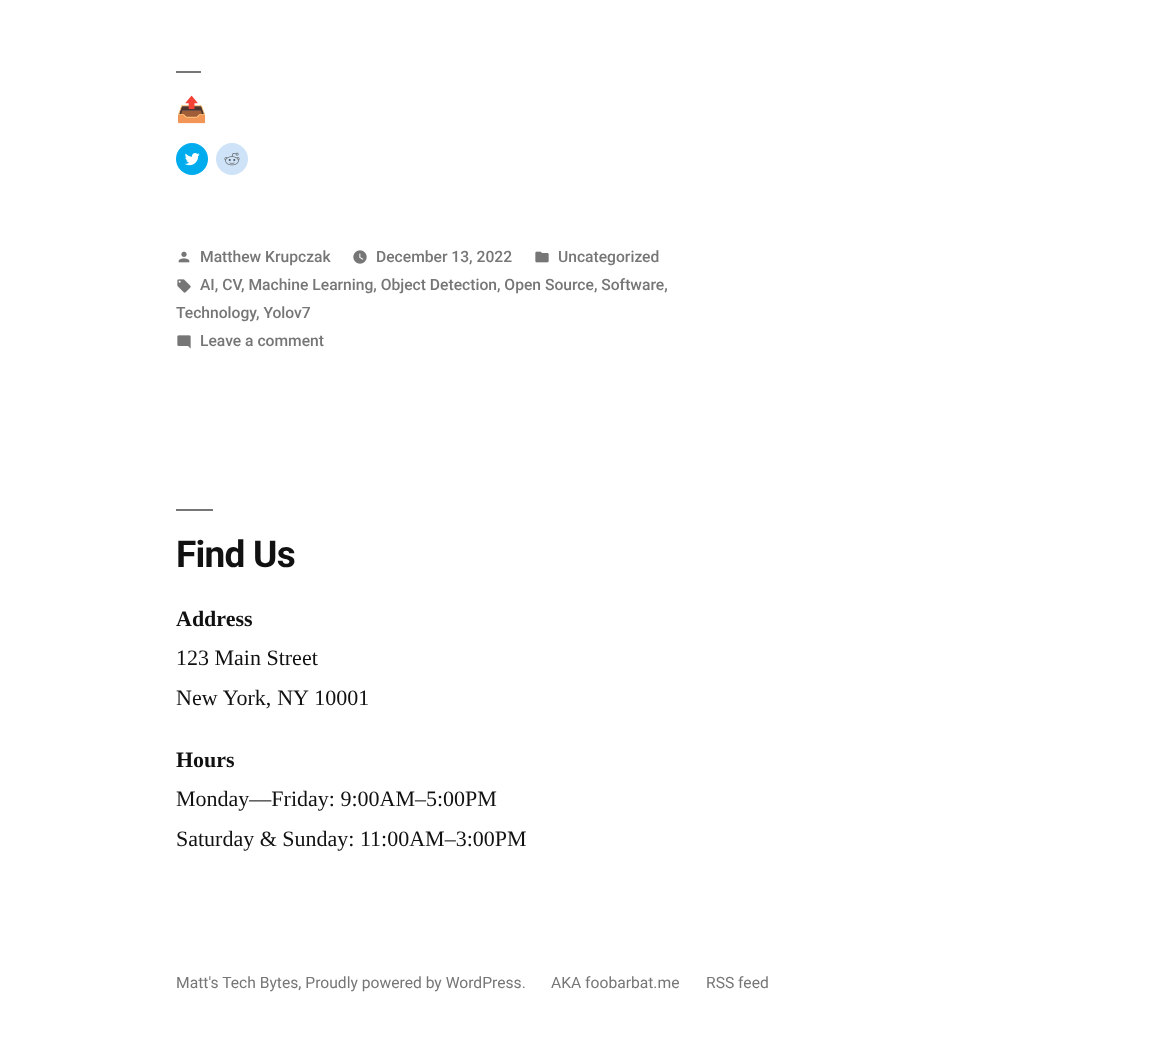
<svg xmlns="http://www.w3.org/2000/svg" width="1161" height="1063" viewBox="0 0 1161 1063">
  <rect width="100%" height="100%" fill="#ffffff"/>
  <rect x="176" y="71" width="25" height="2" fill="#767676"/>
  <text x="176" y="118" font-family="Noto Color Emoji" font-size="25" font-weight="bold" fill="#111111">📤</text>
  <circle cx="192" cy="159" r="16" fill="#00acee"/>
  <image x="184" y="153" width="16" height="13" href="img1.png"/>
  <circle cx="232" cy="159" r="16" fill="#cee3f8"/>
  <image x="224" y="152" width="16" height="14" href="img2.png"/>
  <image x="178" y="251" width="12" height="12" href="img3.png"/>
  <text x="200" y="262" font-family="Roboto" font-size="15.65" font-weight="500" fill="#767676">Matthew Krupczak</text>
  <image x="353" y="250" width="14" height="14" href="img4.png"/>
  <text x="376" y="262" font-family="Roboto" font-size="15.65" font-weight="500" fill="#767676">December 13, 2022</text>
  <image x="535" y="251" width="14" height="12" href="img5.png"/>
  <text x="558" y="262" font-family="Roboto" font-size="15.65" font-weight="500" fill="#767676">Uncategorized</text>
  <image x="177" y="279" width="14" height="14" href="img6.png"/>
  <text x="200" y="290" font-family="Roboto" font-size="15.65" font-weight="500" fill="#767676">AI, CV</text>
  <text x="241" y="290" font-family="Roboto" font-size="15.65" font-weight="500" fill="#767676">, Machine Learning, Object Detection, Open Source, Software,</text>
  <text x="176" y="318" font-family="Roboto" font-size="15.65" font-weight="500" fill="#767676">Technology</text>
  <text x="256" y="318" font-family="Roboto" font-size="15.65" font-weight="500" fill="#767676">, Yolov7</text>
  <image x="177" y="335" width="14" height="14" href="img7.png"/>
  <text x="200" y="346" font-family="Roboto" font-size="15.65" font-weight="500" fill="#767676">Leave a comment</text>
  <rect x="176" y="509" width="37" height="2" fill="#767676"/>
  <text x="176" y="567" font-family="Roboto" font-size="37" font-weight="bold" letter-spacing="-0.75" fill="#111111">Find Us</text>
  <text x="176" y="626" font-family="Liberation Serif" font-size="22" font-weight="bold" fill="#111111">Address</text>
  <text x="176" y="665" font-family="Liberation Serif" font-size="22" fill="#111111">123 Main Street</text>
  <text x="176" y="705" word-spacing="0.5" font-family="Liberation Serif" font-size="22" fill="#111111">New York, NY 10001</text>
  <text x="176" y="767" font-family="Liberation Serif" font-size="22" font-weight="bold" fill="#111111">Hours</text>
  <text x="176" y="806" font-family="Liberation Serif" font-size="22" fill="#111111">Monday—Friday: 9:00AM–5:00PM</text>
  <text x="176" y="846" font-family="Liberation Serif" font-size="22" fill="#111111">Saturday &amp; Sunday: 11:00AM–3:00PM</text>
  <text x="176" y="988" font-family="Roboto" font-size="15.65" fill="#767676">Matt's Tech Bytes, Proudly powered by WordPress.</text>
  <text x="551" y="988" font-family="Roboto" font-size="15.65" fill="#767676">AKA foobarbat.me</text>
  <text x="706" y="988" font-family="Roboto" font-size="15.65" fill="#767676">RSS feed</text>
</svg>
